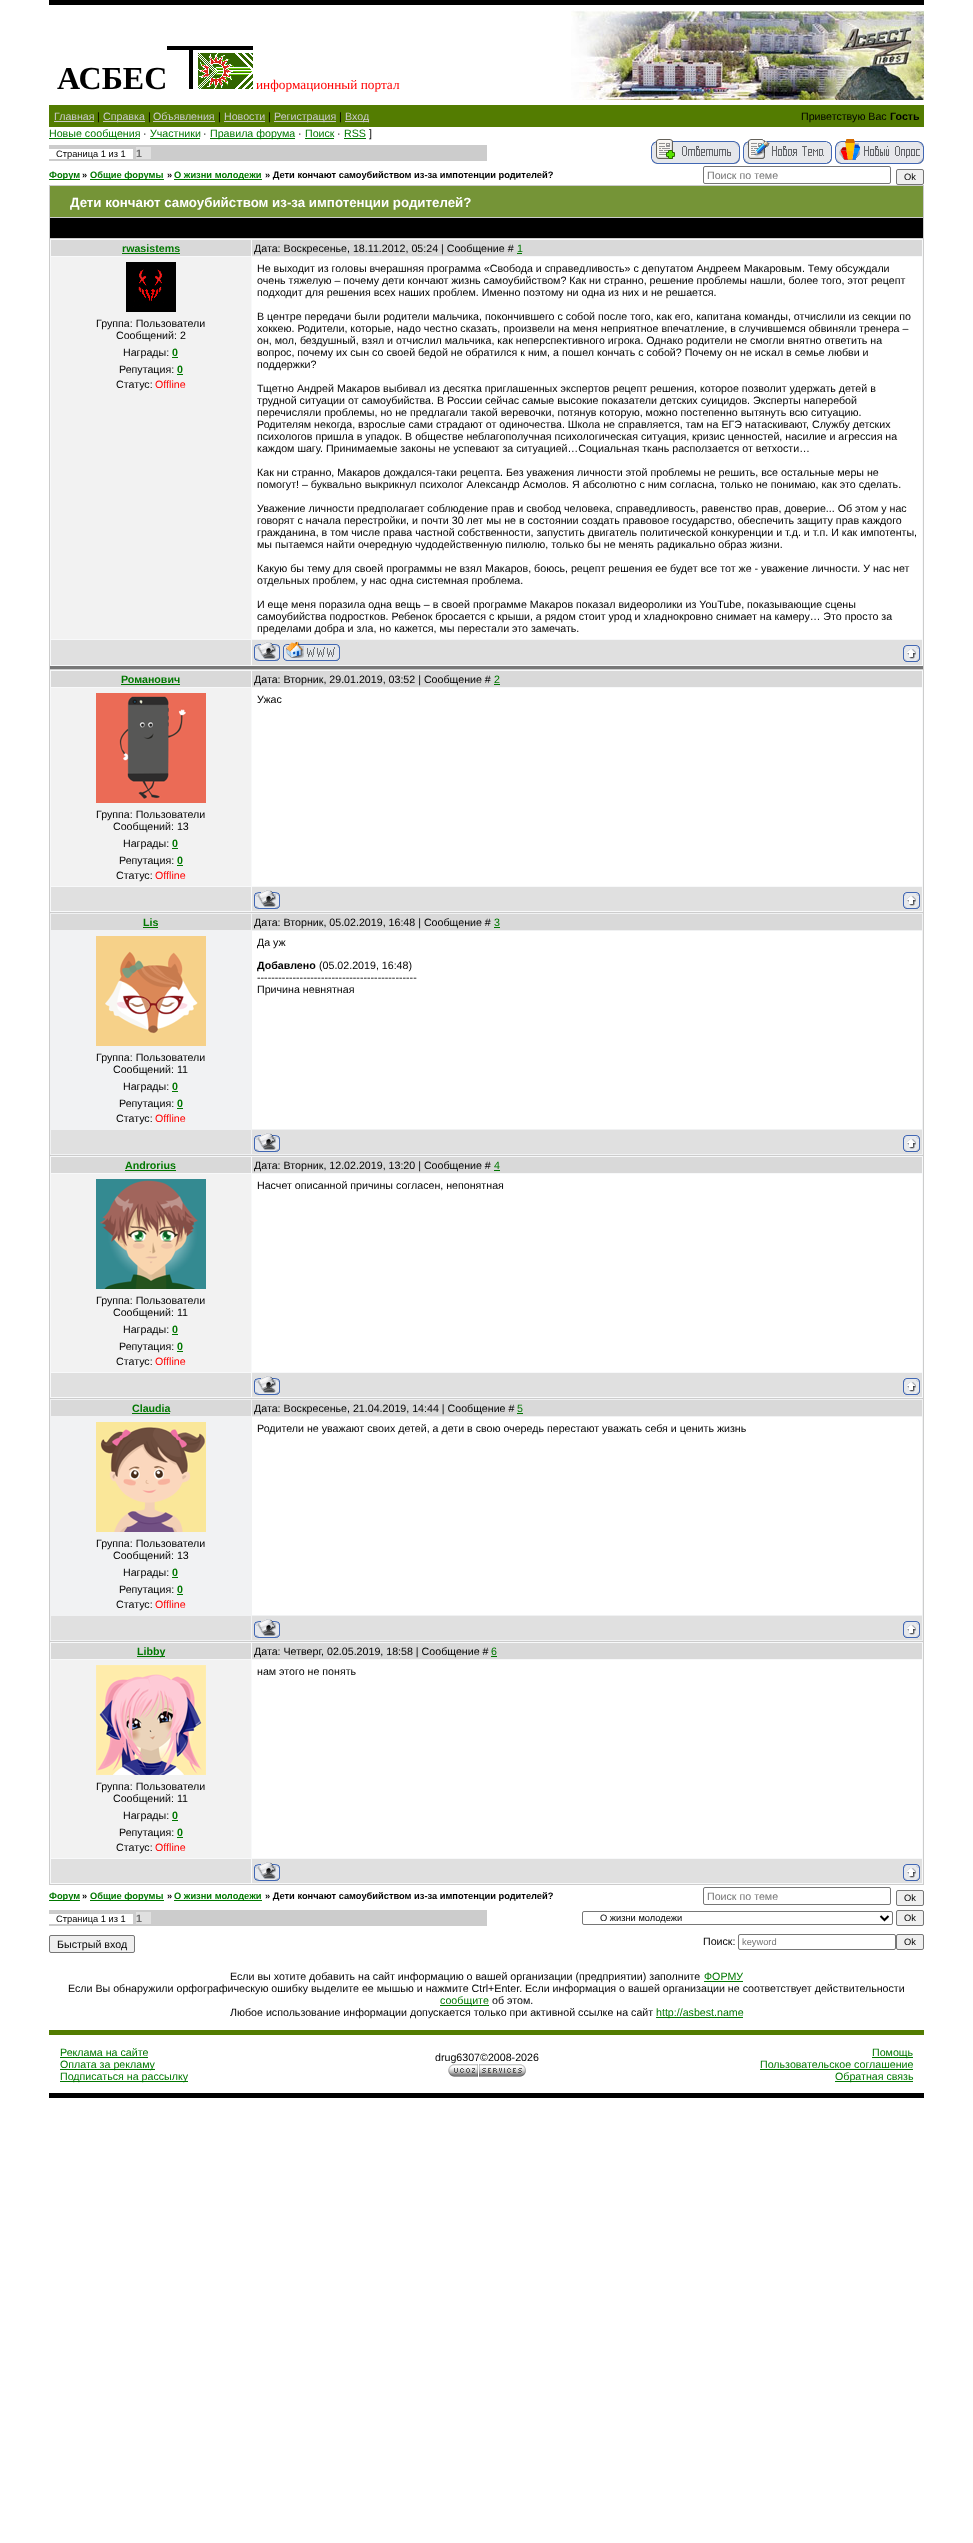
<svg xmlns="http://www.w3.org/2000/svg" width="973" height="2543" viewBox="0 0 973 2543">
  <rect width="100%" height="100%" fill="#ffffff"/>
  <rect x="49" y="0" width="875" height="5" fill="#000000"/>
  <image x="571" y="10" width="353" height="90" href="img1.png"/>
  <text x="57" y="89" font-family="Liberation Serif" font-size="32" font-weight="bold" fill="#000000">АСБЕС</text>
  <image x="167" y="46" width="86" height="43" href="img2.png"/>
  <text x="256" y="89" font-family="Liberation Serif" font-size="13.3" fill="#ff0000">информационный портал</text>
  <rect x="49" y="105" width="875" height="22" fill="#537c01"/>
  <text x="54" y="120" font-family="Liberation Sans" font-size="10.67" fill="#cccccc">Главная</text>
  <rect x="54" y="121" width="40" height="1" fill="#cccccc"/>
  <text x="97" y="120" font-family="Liberation Sans" font-size="10.67" fill="#000000">|</text>
  <rect x="103" y="121" width="42" height="1" fill="#cccccc"/>
  <text x="103" y="120" font-family="Liberation Sans" font-size="10.67" fill="#cccccc">Справка</text>
  <text x="148" y="120" font-family="Liberation Sans" font-size="10.67" fill="#000000">|</text>
  <text x="153" y="120" font-family="Liberation Sans" font-size="10.67" fill="#cccccc">Объявления</text>
  <rect x="153" y="121" width="62" height="1" fill="#cccccc"/>
  <text x="218" y="120" font-family="Liberation Sans" font-size="10.67" fill="#000000">|</text>
  <text x="224" y="120" font-family="Liberation Sans" font-size="10.67" fill="#cccccc">Новости</text>
  <rect x="224" y="121" width="41" height="1" fill="#cccccc"/>
  <text x="268" y="120" font-family="Liberation Sans" font-size="10.67" fill="#000000">|</text>
  <rect x="274" y="121" width="62" height="1" fill="#cccccc"/>
  <text x="274" y="120" font-family="Liberation Sans" font-size="10.67" fill="#cccccc">Регистрация</text>
  <text x="339" y="120" font-family="Liberation Sans" font-size="10.67" fill="#000000">|</text>
  <rect x="345" y="121" width="24" height="1" fill="#cccccc"/>
  <text x="345" y="120" font-family="Liberation Sans" font-size="10.67" fill="#cccccc">Вход</text>
  <text x="801" y="120" font-family="Liberation Sans" font-size="10.67" fill="#000000">Приветствую Вас</text>
  <text x="890" y="120" font-family="Liberation Sans" font-size="10.67" font-weight="bold" fill="#000000">Гость</text>
  <rect x="49" y="138" width="91" height="1" fill="#007700"/>
  <text x="49" y="137" font-family="Liberation Sans" font-size="10.67" fill="#007700">Новые сообщения</text>
  <text x="143" y="137" font-family="Liberation Sans" font-size="10.67" fill="#000000">·</text>
  <text x="150" y="137" font-family="Liberation Sans" font-size="10.67" fill="#007700">Участники</text>
  <rect x="150" y="138" width="50" height="1" fill="#007700"/>
  <text x="203" y="137" font-family="Liberation Sans" font-size="10.67" fill="#000000">·</text>
  <rect x="210" y="138" width="85" height="1" fill="#007700"/>
  <text x="210" y="137" font-family="Liberation Sans" font-size="10.67" fill="#007700">Правила форума</text>
  <text x="298" y="137" font-family="Liberation Sans" font-size="10.67" fill="#000000">·</text>
  <text x="305" y="137" font-family="Liberation Sans" font-size="10.67" fill="#007700">Поиск</text>
  <rect x="305" y="138" width="29" height="1" fill="#007700"/>
  <text x="337" y="137" font-family="Liberation Sans" font-size="10.67" fill="#000000">·</text>
  <text x="344" y="137" font-family="Liberation Sans" font-size="10.67" fill="#007700">RSS</text>
  <rect x="344" y="138" width="22" height="1" fill="#007700"/>
  <text x="369" y="137" font-family="Liberation Sans" font-size="10.67" fill="#000000">]</text>
  <rect x="49" y="145" width="438" height="16" fill="#cccccc"/>
  <rect x="49" y="149" width="84" height="10" fill="#ffffff"/>
  <text x="56" y="157" font-family="Liberation Sans" font-size="9.3" fill="#000000">Страница 1 из 1</text>
  <rect x="136" y="147" width="15" height="12" fill="#e0e0e0"/>
  <text x="136" y="157" font-family="Liberation Sans" font-size="10.67" font-weight="bold" fill="#6e6e6e">1</text>
  <image x="651" y="139" width="89" height="25" href="img3.png"/>
  <image x="743" y="139" width="89" height="25" href="img4.png"/>
  <image x="835" y="139" width="89" height="25" href="img5.png"/>
  <rect x="49" y="179" width="31" height="1" fill="#007700"/>
  <text x="49" y="178" font-family="Liberation Sans" font-size="9.3" font-weight="bold" fill="#007700">Форум</text>
  <text x="82" y="178" font-family="Liberation Sans" font-size="9.3" font-weight="bold" fill="#000000">»</text>
  <rect x="90" y="179" width="74" height="1" fill="#007700"/>
  <text x="90" y="178" font-family="Liberation Sans" font-size="9.3" font-weight="bold" fill="#007700">Общие форумы</text>
  <text x="167" y="178" font-family="Liberation Sans" font-size="9.3" font-weight="bold" fill="#000000">»</text>
  <rect x="174" y="179" width="88" height="1" fill="#007700"/>
  <text x="174" y="178" font-family="Liberation Sans" font-size="9.3" font-weight="bold" fill="#007700">О жизни молодежи</text>
  <text x="265" y="178" font-family="Liberation Sans" font-size="9.3" font-weight="bold" fill="#000000">» Дети кончают самоубийством из-за импотенции родителей?</text>
  <rect x="703.5" y="166.5" width="187" height="17" rx="1.5" fill="none" stroke="#767676"/>
  <text x="707" y="179" font-family="Liberation Sans" font-size="10.67" fill="#757575">Поиск по теме</text>
  <rect x="896.5" y="169.5" width="27" height="15" rx="1.5" fill="#efefef" stroke="#767676"/>
  <text x="904" y="180" font-family="Liberation Sans" font-size="9.3" fill="#000000">Ok</text>
  <rect x="49" y="185" width="875" height="1700" fill="#cccccc"/>
  <rect x="50" y="186" width="873" height="31" fill="#759437"/>
  <text x="70" y="207" font-family="Liberation Sans" font-size="13.3" font-weight="bold" fill="#ffffff">Дети кончают самоубийством из-за импотенции родителей?</text>
  <rect x="50" y="218" width="873" height="20" fill="#000000"/>
  <rect x="50" y="239" width="873" height="427" fill="#f8f9fa"/>
  <rect x="50" y="666" width="873" height="3" fill="#787878"/>
  <rect x="51" y="240" width="200" height="16" fill="#d9d9d9"/>
  <text x="122" y="252" font-family="Liberation Sans" font-size="10.67" font-weight="bold" fill="#007700">rwasistems</text>
  <rect x="122" y="253" width="58" height="1" fill="#007700"/>
  <rect x="252" y="240" width="670" height="16" fill="#d9d9d9"/>
  <text x="254" y="252" font-family="Liberation Sans" font-size="10.67" fill="#000000">Дата: Воскресенье, 18.11.2012, 05:24 | Сообщение #</text>
  <text x="517" y="252" font-family="Liberation Sans" font-size="10.67" fill="#007700">1</text>
  <rect x="517" y="253" width="5" height="1" fill="#007700"/>
  <rect x="51" y="257" width="200" height="382" fill="#f2f2f2"/>
  <image x="126" y="262" width="50" height="50" href="img6.png"/>
  <text x="96" y="327" font-family="Liberation Sans" font-size="10.67" fill="#000000">Группа: Пользователи</text>
  <text x="116" y="339" font-family="Liberation Sans" font-size="10.67" fill="#000000">Сообщений: 2</text>
  <text x="123" y="356" font-family="Liberation Sans" font-size="10.67" fill="#000000">Награды:</text>
  <text x="172" y="356" font-family="Liberation Sans" font-size="10.67" font-weight="bold" fill="#007700">0</text>
  <rect x="172" y="357" width="6" height="1" fill="#007700"/>
  <text x="119" y="373" font-family="Liberation Sans" font-size="10.67" fill="#000000">Репутация:</text>
  <text x="177" y="373" font-family="Liberation Sans" font-size="10.67" font-weight="bold" fill="#007700">0</text>
  <rect x="177" y="374" width="6" height="1" fill="#007700"/>
  <text x="116" y="388" font-family="Liberation Sans" font-size="10.67" fill="#000000">Статус:</text>
  <text x="155" y="388" font-family="Liberation Sans" font-size="10.67" fill="#ff0000">Offline</text>
  <rect x="252" y="257" width="670" height="382" fill="#ffffff"/>
  <text x="257" y="272" font-family="Liberation Sans" font-size="10.67" fill="#000000">Не выходит из головы вчерашняя программа «Свобода и справедливость» с депутатом Андреем Макаровым. Тему обсуждали</text>
  <text x="257" y="284" font-family="Liberation Sans" font-size="10.67" fill="#000000">очень тяжелую – почему дети кончают жизнь самоубийством? Как ни странно, решение проблемы нашли, более того, этот рецепт</text>
  <text x="257" y="296" font-family="Liberation Sans" font-size="10.67" fill="#000000">подходит для решения всех наших проблем. Именно поэтому ни одна из них и не решается.</text>
  <text x="257" y="320" font-family="Liberation Sans" font-size="10.67" fill="#000000">В центре передачи были родители мальчика, покончившего с собой после того, как его, капитана команды, отчислили из секции по</text>
  <text x="257" y="332" font-family="Liberation Sans" font-size="10.67" fill="#000000">хоккею. Родители, которые, надо честно сказать, произвели на меня неприятное впечатление, в случившемся обвиняли тренера –</text>
  <text x="257" y="344" font-family="Liberation Sans" font-size="10.67" fill="#000000">он, мол, бездушный, взял и отчислил мальчика, как неперспективного игрока. Однако родители не смогли внятно ответить на</text>
  <text x="257" y="356" font-family="Liberation Sans" font-size="10.67" fill="#000000">вопрос, почему их сын со своей бедой не обратился к ним, а пошел кончать с собой? Почему он не искал в семье любви и</text>
  <text x="257" y="368" font-family="Liberation Sans" font-size="10.67" fill="#000000">поддержки?</text>
  <text x="257" y="392" font-family="Liberation Sans" font-size="10.67" fill="#000000">Тщетно Андрей Макаров выбивал из десятка приглашенных экспертов рецепт решения, которое позволит удержать детей в</text>
  <text x="257" y="404" font-family="Liberation Sans" font-size="10.67" fill="#000000">трудной ситуации от самоубийства. В России сейчас самые высокие показатели детских суицидов. Эксперты наперебой</text>
  <text x="257" y="416" font-family="Liberation Sans" font-size="10.67" fill="#000000">перечисляли проблемы, но не предлагали такой веревочки, потянув которую, можно постепенно вытянуть всю ситуацию.</text>
  <text x="257" y="428" font-family="Liberation Sans" font-size="10.67" fill="#000000">Родителям некогда, взрослые сами страдают от одиночества. Школа не справляется, там на ЕГЭ натаскивают, Службу детских</text>
  <text x="257" y="440" font-family="Liberation Sans" font-size="10.67" fill="#000000">психологов пришла в упадок. В обществе неблагополучная психологическая ситуация, кризис ценностей, насилие и агрессия на</text>
  <text x="257" y="452" font-family="Liberation Sans" font-size="10.67" fill="#000000">каждом шагу. Принимаемые законы не успевают за ситуацией…Социальная ткань расползается от ветхости…</text>
  <text x="257" y="476" font-family="Liberation Sans" font-size="10.67" fill="#000000">Как ни странно, Макаров дождался-таки рецепта. Без уважения личности этой проблемы не решить, все остальные меры не</text>
  <text x="257" y="488" font-family="Liberation Sans" font-size="10.67" fill="#000000">помогут! – буквально выкрикнул психолог Александр Асмолов. Я абсолютно с ним согласна, только не понимаю, как это сделать.</text>
  <text x="257" y="512" font-family="Liberation Sans" font-size="10.67" fill="#000000">Уважение личности предполагает соблюдение прав и свобод человека, справедливость, равенство прав, доверие... Об этом у нас</text>
  <text x="257" y="524" font-family="Liberation Sans" font-size="10.67" fill="#000000">говорят с начала перестройки, и почти 30 лет мы не в состоянии создать правовое государство, обеспечить защиту прав каждого</text>
  <text x="257" y="536" font-family="Liberation Sans" font-size="10.67" fill="#000000">гражданина, в том числе права частной собственности, запустить двигатель политической конкуренции и т.д. и т.п. И как импотенты,</text>
  <text x="257" y="548" font-family="Liberation Sans" font-size="10.67" fill="#000000">мы пытаемся найти очередную чудодейственную пилюлю, только бы не менять радикально образ жизни.</text>
  <text x="257" y="572" font-family="Liberation Sans" font-size="10.67" fill="#000000">Какую бы тему для своей программы не взял Макаров, боюсь, рецепт решения ее будет все тот же - уважение личности. У нас нет</text>
  <text x="257" y="584" font-family="Liberation Sans" font-size="10.67" fill="#000000">отдельных проблем, у нас одна системная проблема.</text>
  <text x="257" y="608" font-family="Liberation Sans" font-size="10.67" fill="#000000">И еще меня поразила одна вещь – в своей программе Макаров показал видеоролики из YouTube, показывающие сцены</text>
  <text x="257" y="620" font-family="Liberation Sans" font-size="10.67" fill="#000000">самоубийства подростков. Ребенок бросается с крыши, а рядом стоит урод и хладнокровно снимает на камеру… Это просто за</text>
  <text x="257" y="632" font-family="Liberation Sans" font-size="10.67" fill="#000000">пределами добра и зла, но кажется, мы перестали это замечать.</text>
  <rect x="51" y="640" width="200" height="25" fill="#e0e0e0"/>
  <rect x="252" y="640" width="670" height="25" fill="#e0e0e0"/>
  <image x="254" y="642" width="26" height="19" href="img7.png"/>
  <image x="283" y="642" width="57" height="19" href="img8.png"/>
  <image x="903" y="645" width="17" height="17" href="img9.png"/>
  <rect x="50" y="670" width="873" height="242" fill="#f8f9fa"/>
  <rect x="51" y="671" width="200" height="16" fill="#d9d9d9"/>
  <text x="121" y="683" font-family="Liberation Sans" font-size="10.67" font-weight="bold" fill="#007700">Романович</text>
  <rect x="121" y="684" width="59" height="1" fill="#007700"/>
  <rect x="252" y="671" width="670" height="16" fill="#d9d9d9"/>
  <text x="254" y="683" font-family="Liberation Sans" font-size="10.67" fill="#000000">Дата: Вторник, 29.01.2019, 03:52 | Сообщение #</text>
  <text x="494" y="683" font-family="Liberation Sans" font-size="10.67" fill="#007700">2</text>
  <rect x="494" y="684" width="6" height="1" fill="#007700"/>
  <rect x="252" y="688" width="670" height="198" fill="#ffffff"/>
  <text x="257" y="703" font-family="Liberation Sans" font-size="10.67" fill="#000000">Ужас</text>
  <rect x="51" y="688" width="200" height="198" fill="#f2f2f2"/>
  <image x="96" y="693" width="110" height="110" href="img10.png"/>
  <text x="96" y="818" font-family="Liberation Sans" font-size="10.67" fill="#000000">Группа: Пользователи</text>
  <text x="113" y="830" font-family="Liberation Sans" font-size="10.67" fill="#000000">Сообщений: 13</text>
  <text x="123" y="847" font-family="Liberation Sans" font-size="10.67" fill="#000000">Награды:</text>
  <text x="172" y="847" font-family="Liberation Sans" font-size="10.67" font-weight="bold" fill="#007700">0</text>
  <rect x="172" y="848" width="6" height="1" fill="#007700"/>
  <text x="119" y="864" font-family="Liberation Sans" font-size="10.67" fill="#000000">Репутация:</text>
  <text x="177" y="864" font-family="Liberation Sans" font-size="10.67" font-weight="bold" fill="#007700">0</text>
  <rect x="177" y="865" width="6" height="1" fill="#007700"/>
  <text x="116" y="879" font-family="Liberation Sans" font-size="10.67" fill="#000000">Статус:</text>
  <text x="155" y="879" font-family="Liberation Sans" font-size="10.67" fill="#ff0000">Offline</text>
  <rect x="51" y="887" width="200" height="24" fill="#e0e0e0"/>
  <rect x="252" y="887" width="670" height="24" fill="#e0e0e0"/>
  <image x="254" y="890" width="26" height="19" href="img7.png"/>
  <image x="903" y="892" width="17" height="17" href="img9.png"/>
  <rect x="50" y="913" width="873" height="242" fill="#f1f2f3"/>
  <rect x="51" y="914" width="200" height="16" fill="#d9d9d9"/>
  <text x="143" y="926" font-family="Liberation Sans" font-size="10.67" font-weight="bold" fill="#007700">Lis</text>
  <rect x="143" y="927" width="15" height="1" fill="#007700"/>
  <rect x="252" y="914" width="670" height="16" fill="#d9d9d9"/>
  <text x="254" y="926" font-family="Liberation Sans" font-size="10.67" fill="#000000">Дата: Вторник, 05.02.2019, 16:48 | Сообщение #</text>
  <text x="494" y="926" font-family="Liberation Sans" font-size="10.67" fill="#007700">3</text>
  <rect x="494" y="927" width="6" height="1" fill="#007700"/>
  <rect x="252" y="931" width="670" height="198" fill="#ffffff"/>
  <text x="257" y="946" font-family="Liberation Sans" font-size="10.67" fill="#000000">Да уж</text>
  <text x="257" y="969" font-family="Liberation Sans" font-size="10.67" font-weight="bold" fill="#000000">Добавлено</text>
  <text x="319" y="969" font-family="Liberation Sans" font-size="10.67" fill="#000000">(05.02.2019, 16:48)</text>
  <text x="257" y="981" font-family="Liberation Sans" font-size="10.67" fill="#000000">---------------------------------------------</text>
  <text x="257" y="993" font-family="Liberation Sans" font-size="10.67" fill="#000000">Причина невнятная</text>
  <image x="96" y="936" width="110" height="110" href="img11.png"/>
  <text x="96" y="1061" font-family="Liberation Sans" font-size="10.67" fill="#000000">Группа: Пользователи</text>
  <text x="113" y="1073" font-family="Liberation Sans" font-size="10.67" fill="#000000">Сообщений: 11</text>
  <text x="123" y="1090" font-family="Liberation Sans" font-size="10.67" fill="#000000">Награды:</text>
  <text x="172" y="1090" font-family="Liberation Sans" font-size="10.67" font-weight="bold" fill="#007700">0</text>
  <rect x="172" y="1091" width="6" height="1" fill="#007700"/>
  <text x="119" y="1107" font-family="Liberation Sans" font-size="10.67" fill="#000000">Репутация:</text>
  <text x="177" y="1107" font-family="Liberation Sans" font-size="10.67" font-weight="bold" fill="#007700">0</text>
  <rect x="177" y="1108" width="6" height="1" fill="#007700"/>
  <text x="116" y="1122" font-family="Liberation Sans" font-size="10.67" fill="#000000">Статус:</text>
  <text x="155" y="1122" font-family="Liberation Sans" font-size="10.67" fill="#ff0000">Offline</text>
  <rect x="51" y="1130" width="200" height="24" fill="#e0e0e0"/>
  <rect x="252" y="1130" width="670" height="24" fill="#e0e0e0"/>
  <image x="254" y="1133" width="26" height="19" href="img7.png"/>
  <image x="903" y="1135" width="17" height="17" href="img9.png"/>
  <rect x="50" y="1156" width="873" height="242" fill="#f8f9fa"/>
  <rect x="51" y="1157" width="200" height="16" fill="#d9d9d9"/>
  <text x="125" y="1169" font-family="Liberation Sans" font-size="10.67" font-weight="bold" fill="#007700">Androrius</text>
  <rect x="125" y="1170" width="51" height="1" fill="#007700"/>
  <rect x="252" y="1157" width="670" height="16" fill="#d9d9d9"/>
  <text x="254" y="1169" font-family="Liberation Sans" font-size="10.67" fill="#000000">Дата: Вторник, 12.02.2019, 13:20 | Сообщение #</text>
  <text x="494" y="1169" font-family="Liberation Sans" font-size="10.67" fill="#007700">4</text>
  <rect x="494" y="1170" width="6" height="1" fill="#007700"/>
  <rect x="252" y="1174" width="670" height="198" fill="#ffffff"/>
  <text x="257" y="1189" font-family="Liberation Sans" font-size="10.67" fill="#000000">Насчет описанной причины согласен, непонятная</text>
  <rect x="51" y="1174" width="200" height="198" fill="#f2f2f2"/>
  <image x="96" y="1179" width="110" height="110" href="img12.png"/>
  <text x="96" y="1304" font-family="Liberation Sans" font-size="10.67" fill="#000000">Группа: Пользователи</text>
  <text x="113" y="1316" font-family="Liberation Sans" font-size="10.67" fill="#000000">Сообщений: 11</text>
  <text x="123" y="1333" font-family="Liberation Sans" font-size="10.67" fill="#000000">Награды:</text>
  <text x="172" y="1333" font-family="Liberation Sans" font-size="10.67" font-weight="bold" fill="#007700">0</text>
  <rect x="172" y="1334" width="6" height="1" fill="#007700"/>
  <text x="119" y="1350" font-family="Liberation Sans" font-size="10.67" fill="#000000">Репутация:</text>
  <text x="177" y="1350" font-family="Liberation Sans" font-size="10.67" font-weight="bold" fill="#007700">0</text>
  <rect x="177" y="1351" width="6" height="1" fill="#007700"/>
  <text x="116" y="1365" font-family="Liberation Sans" font-size="10.67" fill="#000000">Статус:</text>
  <text x="155" y="1365" font-family="Liberation Sans" font-size="10.67" fill="#ff0000">Offline</text>
  <rect x="51" y="1373" width="200" height="24" fill="#e0e0e0"/>
  <rect x="252" y="1373" width="670" height="24" fill="#e0e0e0"/>
  <image x="254" y="1376" width="26" height="19" href="img7.png"/>
  <image x="903" y="1378" width="17" height="17" href="img9.png"/>
  <rect x="50" y="1399" width="873" height="242" fill="#f1f2f3"/>
  <rect x="51" y="1400" width="200" height="16" fill="#d9d9d9"/>
  <text x="132" y="1412" font-family="Liberation Sans" font-size="10.67" font-weight="bold" fill="#007700">Claudia</text>
  <rect x="132" y="1413" width="38" height="1" fill="#007700"/>
  <rect x="252" y="1400" width="670" height="16" fill="#d9d9d9"/>
  <text x="254" y="1412" font-family="Liberation Sans" font-size="10.67" fill="#000000">Дата: Воскресенье, 21.04.2019, 14:44 | Сообщение #</text>
  <text x="517" y="1412" font-family="Liberation Sans" font-size="10.67" fill="#007700">5</text>
  <rect x="517" y="1413" width="6" height="1" fill="#007700"/>
  <rect x="252" y="1417" width="670" height="198" fill="#ffffff"/>
  <text x="257" y="1432" font-family="Liberation Sans" font-size="10.67" fill="#000000">Родители не уважают своих детей, а дети в свою очередь перестают уважать себя и ценить жизнь</text>
  <image x="96" y="1422" width="110" height="110" href="img13.png"/>
  <text x="96" y="1547" font-family="Liberation Sans" font-size="10.67" fill="#000000">Группа: Пользователи</text>
  <text x="113" y="1559" font-family="Liberation Sans" font-size="10.67" fill="#000000">Сообщений: 13</text>
  <text x="123" y="1576" font-family="Liberation Sans" font-size="10.67" fill="#000000">Награды:</text>
  <text x="172" y="1576" font-family="Liberation Sans" font-size="10.67" font-weight="bold" fill="#007700">0</text>
  <rect x="172" y="1577" width="6" height="1" fill="#007700"/>
  <text x="119" y="1593" font-family="Liberation Sans" font-size="10.67" fill="#000000">Репутация:</text>
  <text x="177" y="1593" font-family="Liberation Sans" font-size="10.67" font-weight="bold" fill="#007700">0</text>
  <rect x="177" y="1594" width="6" height="1" fill="#007700"/>
  <text x="116" y="1608" font-family="Liberation Sans" font-size="10.67" fill="#000000">Статус:</text>
  <text x="155" y="1608" font-family="Liberation Sans" font-size="10.67" fill="#ff0000">Offline</text>
  <rect x="51" y="1616" width="200" height="24" fill="#e0e0e0"/>
  <rect x="252" y="1616" width="670" height="24" fill="#e0e0e0"/>
  <image x="254" y="1619" width="26" height="19" href="img7.png"/>
  <image x="903" y="1621" width="17" height="17" href="img9.png"/>
  <rect x="50" y="1642" width="873" height="242" fill="#f8f9fa"/>
  <rect x="51" y="1643" width="200" height="16" fill="#d9d9d9"/>
  <rect x="137" y="1656" width="28" height="1" fill="#007700"/>
  <text x="137" y="1655" font-family="Liberation Sans" font-size="10.67" font-weight="bold" fill="#007700">Libby</text>
  <rect x="252" y="1643" width="670" height="16" fill="#d9d9d9"/>
  <text x="254" y="1655" font-family="Liberation Sans" font-size="10.67" fill="#000000">Дата: Четверг, 02.05.2019, 18:58 | Сообщение #</text>
  <text x="491" y="1655" font-family="Liberation Sans" font-size="10.67" fill="#007700">6</text>
  <rect x="491" y="1656" width="6" height="1" fill="#007700"/>
  <rect x="252" y="1660" width="670" height="198" fill="#ffffff"/>
  <text x="257" y="1675" font-family="Liberation Sans" font-size="10.67" fill="#000000">нам этого не понять</text>
  <rect x="51" y="1660" width="200" height="198" fill="#f2f2f2"/>
  <image x="96" y="1665" width="110" height="110" href="img14.png"/>
  <text x="96" y="1790" font-family="Liberation Sans" font-size="10.67" fill="#000000">Группа: Пользователи</text>
  <text x="113" y="1802" font-family="Liberation Sans" font-size="10.67" fill="#000000">Сообщений: 11</text>
  <text x="123" y="1819" font-family="Liberation Sans" font-size="10.67" fill="#000000">Награды:</text>
  <text x="172" y="1819" font-family="Liberation Sans" font-size="10.67" font-weight="bold" fill="#007700">0</text>
  <rect x="172" y="1820" width="6" height="1" fill="#007700"/>
  <text x="119" y="1836" font-family="Liberation Sans" font-size="10.67" fill="#000000">Репутация:</text>
  <text x="177" y="1836" font-family="Liberation Sans" font-size="10.67" font-weight="bold" fill="#007700">0</text>
  <rect x="177" y="1837" width="6" height="1" fill="#007700"/>
  <text x="116" y="1851" font-family="Liberation Sans" font-size="10.67" fill="#000000">Статус:</text>
  <text x="155" y="1851" font-family="Liberation Sans" font-size="10.67" fill="#ff0000">Offline</text>
  <rect x="51" y="1859" width="200" height="24" fill="#e0e0e0"/>
  <rect x="252" y="1859" width="670" height="24" fill="#e0e0e0"/>
  <image x="254" y="1862" width="26" height="19" href="img7.png"/>
  <image x="903" y="1864" width="17" height="17" href="img9.png"/>
  <rect x="49" y="1900" width="31" height="1" fill="#007700"/>
  <text x="49" y="1899" font-family="Liberation Sans" font-size="9.3" font-weight="bold" fill="#007700">Форум</text>
  <text x="82" y="1899" font-family="Liberation Sans" font-size="9.3" font-weight="bold" fill="#000000">»</text>
  <rect x="90" y="1900" width="74" height="1" fill="#007700"/>
  <text x="90" y="1899" font-family="Liberation Sans" font-size="9.3" font-weight="bold" fill="#007700">Общие форумы</text>
  <text x="167" y="1899" font-family="Liberation Sans" font-size="9.3" font-weight="bold" fill="#000000">»</text>
  <rect x="174" y="1900" width="88" height="1" fill="#007700"/>
  <text x="174" y="1899" font-family="Liberation Sans" font-size="9.3" font-weight="bold" fill="#007700">О жизни молодежи</text>
  <text x="265" y="1899" font-family="Liberation Sans" font-size="9.3" font-weight="bold" fill="#000000">» Дети кончают самоубийством из-за импотенции родителей?</text>
  <rect x="703.5" y="1887.5" width="187" height="17" rx="1.5" fill="none" stroke="#767676"/>
  <text x="707" y="1900" font-family="Liberation Sans" font-size="10.67" fill="#757575">Поиск по теме</text>
  <rect x="896.5" y="1890.5" width="27" height="15" rx="1.5" fill="#efefef" stroke="#767676"/>
  <text x="904" y="1901" font-family="Liberation Sans" font-size="9.3" fill="#000000">Ok</text>
  <rect x="49" y="1910" width="438" height="16" fill="#cccccc"/>
  <rect x="49" y="1914" width="84" height="10" fill="#ffffff"/>
  <text x="56" y="1922" font-family="Liberation Sans" font-size="9.3" fill="#000000">Страница 1 из 1</text>
  <rect x="136" y="1912" width="15" height="12" fill="#e0e0e0"/>
  <text x="136" y="1922" font-family="Liberation Sans" font-size="10.67" font-weight="bold" fill="#6e6e6e">1</text>
  <rect x="582.5" y="1911.5" width="310" height="13" rx="1.5" fill="none" stroke="#767676"/>
  <path d="M880.5 1916L884.5 1920L888.5 1916" fill="none" stroke="#000000" stroke-width="2"/>
  <text x="600" y="1921" font-family="Liberation Sans" font-size="9.3" fill="#000000">О жизни молодежи</text>
  <rect x="896.5" y="1910.5" width="27" height="15" rx="1.5" fill="#efefef" stroke="#767676"/>
  <text x="904" y="1921" font-family="Liberation Sans" font-size="9.3" fill="#000000">Ok</text>
  <rect x="49.5" y="1935.5" width="85" height="17" rx="1.5" fill="#efefef" stroke="#767676"/>
  <text x="57" y="1948" font-family="Liberation Sans" font-size="10.67" fill="#000000">Быстрый вход</text>
  <text x="703" y="1945" font-family="Liberation Sans" font-size="10.67" fill="#000000">Поиск:</text>
  <rect x="738.5" y="1934.5" width="157" height="15" rx="1.5" fill="none" stroke="#767676"/>
  <text x="742" y="1945" font-family="Liberation Sans" font-size="9.3" fill="#757575">keyword</text>
  <rect x="896.5" y="1934.5" width="27" height="15" rx="1.5" fill="#efefef" stroke="#767676"/>
  <text x="904" y="1945" font-family="Liberation Sans" font-size="9.3" fill="#000000">Ok</text>
  <text x="230" y="1980" font-family="Liberation Sans" font-size="10.67" fill="#000000">Если вы хотите добавить на сайт информацию о вашей организации (предприятии) заполните</text>
  <text x="704" y="1980" font-family="Liberation Sans" font-size="10.67" fill="#007700">ФОРМУ</text>
  <rect x="704" y="1981" width="39" height="1" fill="#007700"/>
  <text x="68" y="1992" font-family="Liberation Sans" font-size="10.67" fill="#000000">Если Вы обнаружили орфографическую ошибку выделите ее мышью и нажмите Ctrl+Enter. Если информация о вашей организации не соответствует действительности</text>
  <rect x="440" y="2005" width="49" height="1" fill="#007700"/>
  <text x="440" y="2004" font-family="Liberation Sans" font-size="10.67" fill="#007700">сообщите</text>
  <text x="492" y="2004" font-family="Liberation Sans" font-size="10.67" fill="#000000">об этом.</text>
  <text x="230" y="2016" font-family="Liberation Sans" font-size="10.67" fill="#000000">Любое использование информации допускается только при активной ссылке на сайт</text>
  <rect x="656" y="2017" width="87" height="1" fill="#007700"/>
  <text x="656" y="2016" font-family="Liberation Sans" font-size="10.67" fill="#007700">http://asbest.name</text>
  <rect x="49" y="2030" width="875" height="5" fill="#537c01"/>
  <rect x="49" y="2093" width="875" height="5" fill="#000000"/>
  <text x="60" y="2056" font-family="Liberation Sans" font-size="10.67" fill="#007700">Реклама на сайте</text>
  <rect x="60" y="2057" width="88" height="1" fill="#007700"/>
  <rect x="60" y="2069" width="95" height="1" fill="#007700"/>
  <text x="60" y="2068" font-family="Liberation Sans" font-size="10.67" fill="#007700">Оплата за рекламу</text>
  <rect x="60" y="2081" width="128" height="1" fill="#007700"/>
  <text x="60" y="2080" font-family="Liberation Sans" font-size="10.67" fill="#007700">Подписаться на рассылку</text>
  <text x="435" y="2061" font-family="Liberation Sans" font-size="10.67" fill="#000000">drug6307©2008-2026</text>
  <image x="448" y="2064" width="78" height="13" href="img15.png"/>
  <rect x="872" y="2057" width="41" height="1" fill="#007700"/>
  <text x="872" y="2056" font-family="Liberation Sans" font-size="10.67" fill="#007700">Помощь</text>
  <text x="760" y="2068" font-family="Liberation Sans" font-size="10.67" fill="#007700">Пользовательское соглашение</text>
  <rect x="760" y="2069" width="153" height="1" fill="#007700"/>
  <rect x="835" y="2081" width="78" height="1" fill="#007700"/>
  <text x="835" y="2080" font-family="Liberation Sans" font-size="10.67" fill="#007700">Обратная связь</text>
</svg>
